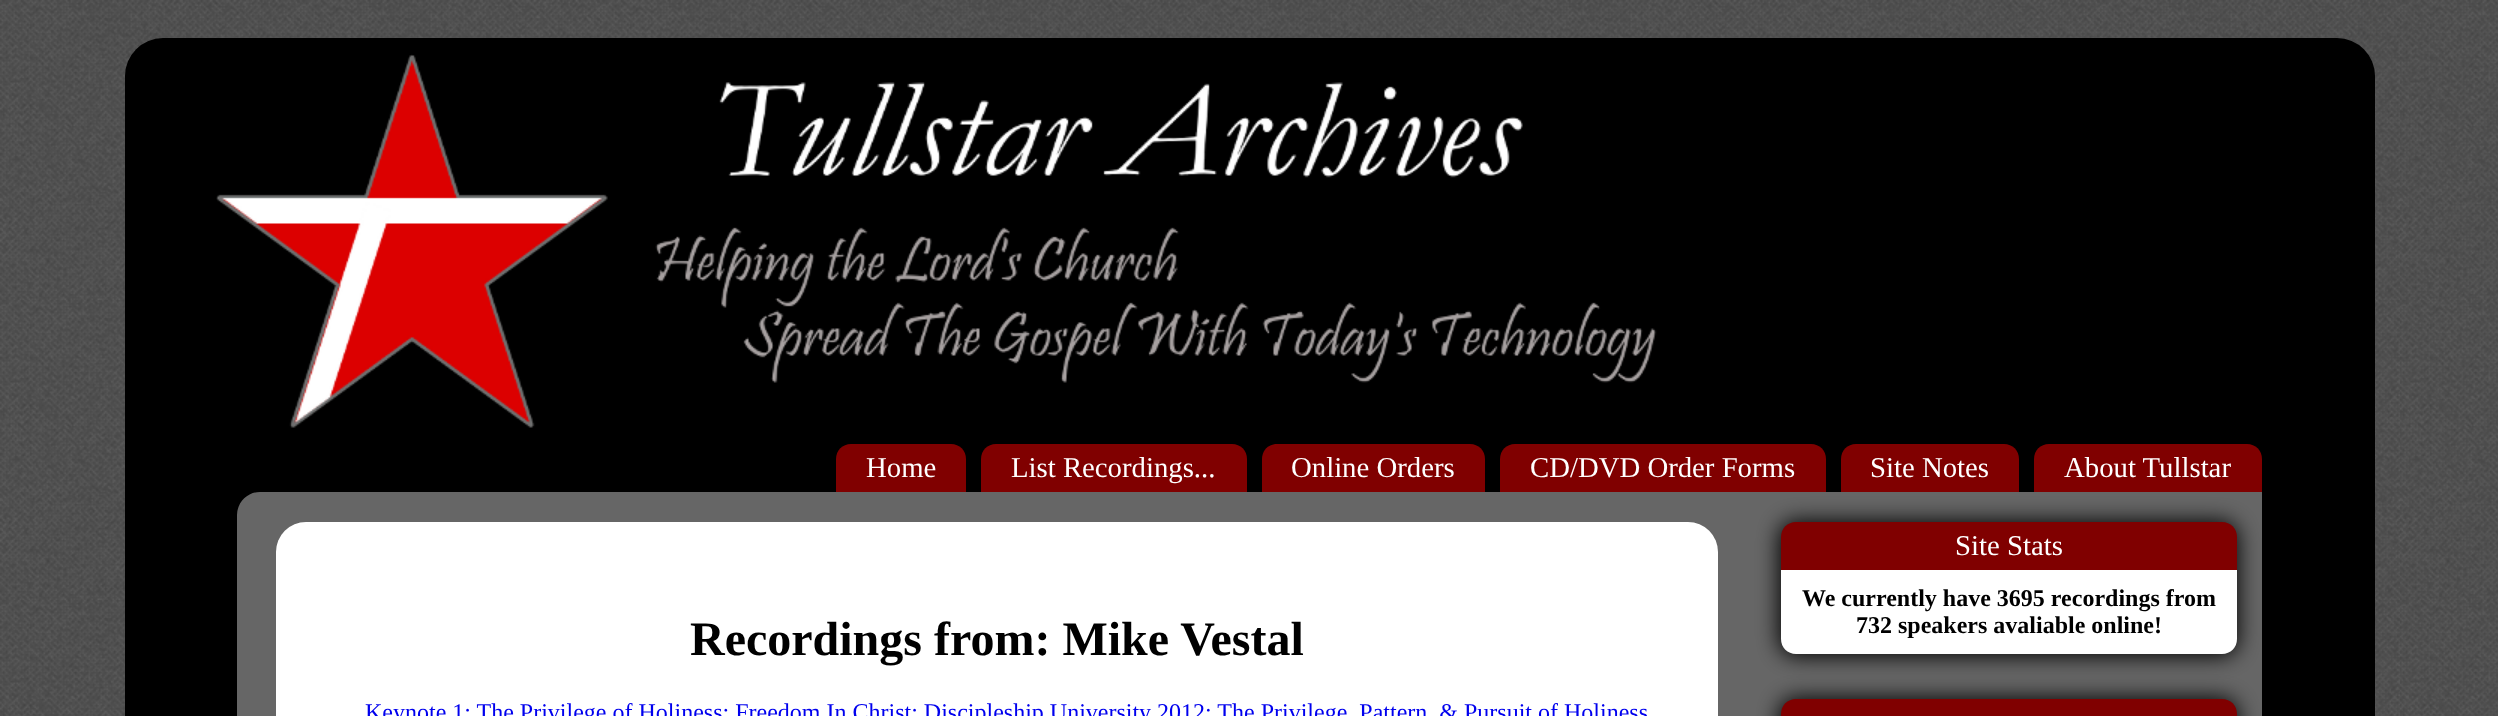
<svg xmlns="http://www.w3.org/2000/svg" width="2498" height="716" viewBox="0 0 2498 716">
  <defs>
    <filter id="blur1" x="-50%" y="-200%" width="200%" height="500%"><feGaussianBlur stdDeviation="11"/></filter>
  </defs>
  <rect width="100%" height="100%" fill="#ffffff"/>
  <image x="0" y="0" width="2498" height="716" href="img1.png"/>
  <rect x="125" y="38" width="2250" height="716" rx="38" fill="#000000"/>
  <image x="216" y="54" width="1441" height="374" href="img2.png"/>
  <path d="M851 444H951C959.5 444 966 450.5 966 459V492H836V459C836 450.5 842.5 444 851 444Z" fill="#800000"/>
  <text x="866" y="477" font-family="Liberation Serif" font-size="28.75" fill="#ffffff">Home</text>
  <path d="M996 444H1232C1240.5 444 1247 450.5 1247 459V492H981V459C981 450.5 987.5 444 996 444Z" fill="#800000"/>
  <text x="1011" y="477" font-family="Liberation Serif" font-size="28.75" fill="#ffffff">List Recordings...</text>
  <path d="M1277 444H1470C1478.5 444 1485 450.5 1485 459V492H1262V459C1262 450.5 1268.5 444 1277 444Z" fill="#800000"/>
  <text x="1291" y="477" font-family="Liberation Serif" font-size="28.75" fill="#ffffff">Online Orders</text>
  <path d="M260 492H2262V716C2262 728.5 2251.5 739 2239 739H260C247.5 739 237 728.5 237 716V515C237 502.5 247.5 492 260 492Z" fill="#666666"/>
  <rect x="1779" y="521" width="459" height="135" rx="17" fill="#000000" filter="url(#blur1)"/>
  <path d="M1515 444H1811C1819.5 444 1826 450.5 1826 459V492H1500V459C1500 450.5 1506.5 444 1515 444Z" fill="#800000"/>
  <text x="1530" y="477" font-family="Liberation Serif" font-size="28.75" fill="#ffffff">CD/DVD Order Forms</text>
  <path d="M1856 444H2004C2012.5 444 2019 450.5 2019 459V492H1841V459C1841 450.5 1847.5 444 1856 444Z" fill="#800000"/>
  <text x="1870" y="477" font-family="Liberation Serif" font-size="28.75" fill="#ffffff">Site Notes</text>
  <path d="M2049 444H2247C2255.5 444 2262 450.5 2262 459V492H2034V459C2034 450.5 2040.5 444 2049 444Z" fill="#800000"/>
  <text x="2064" y="477" font-family="Liberation Serif" font-size="28.75" fill="#ffffff">About Tullstar</text>
  <path d="M1796 522H2222C2230.5 522 2237 528.5 2237 537V570H1781V537C1781 528.5 1787.5 522 1796 522Z" fill="#800000"/>
  <text x="1955" y="555" font-family="Liberation Serif" font-size="28.75" fill="#ffffff">Site Stats</text>
  <path d="M1781 570H2237V639C2237 647.5 2230.5 654 2222 654H1796C1787.5 654 1781 647.5 1781 639Z" fill="#ffffff"/>
  <text x="1802" y="606" font-family="Liberation Serif" font-size="24" font-weight="bold" fill="#000000">We currently have 3695 recordings from</text>
  <text x="1856" y="633" font-family="Liberation Serif" font-size="24" font-weight="bold" fill="#000000">732 speakers avaliable online!</text>
  <rect x="1779" y="698" width="459" height="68" rx="17" fill="#000000" filter="url(#blur1)"/>
  <path d="M1796 699H2222C2230.5 699 2237 705.5 2237 714V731H1781V714C1781 705.5 1787.5 699 1796 699Z" fill="#800000"/>
  <rect x="276" y="522" width="1442" height="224" rx="30" fill="#ffffff"/>
  <text x="690" y="655" font-family="Liberation Serif" font-size="48" font-weight="bold" fill="#000000">Recordings from: Mike Vestal</text>
  <text x="365" y="720" font-family="Liberation Serif" font-size="24" fill="#0000ee">Keynote 1: The Privilege of Holiness: Freedom In Christ; Discipleship University 2012: The Privilege, Pattern, &amp; Pursuit of Holiness</text>
</svg>
